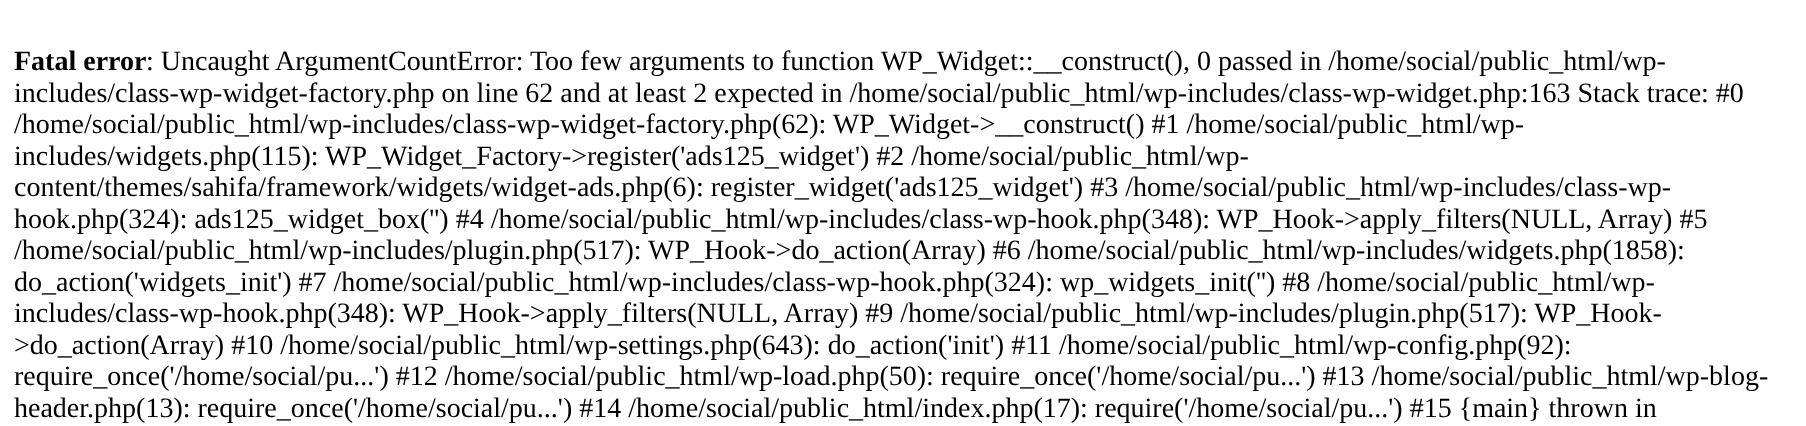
<svg xmlns="http://www.w3.org/2000/svg" width="1806" height="426" viewBox="0 0 1806 426">
  <rect width="100%" height="100%" fill="#ffffff"/>
  <text x="14" y="70" font-family="Liberation Serif" font-size="28" font-weight="bold" fill="#000000">Fatal error</text>
  <text x="146" y="70" font-family="Liberation Serif" font-size="28" fill="#000000">: Uncaught ArgumentCountError: Too few arguments to function WP_Widget::__construct(), 0 passed in /home/social/public_html/wp-</text>
  <text x="14" y="102" font-family="Liberation Serif" font-size="28" fill="#000000">includes/class-wp-widget-factory.php on line 62 and at least 2 expected in /home/social/public_html/wp-includes/class-wp-widget.php:163 Stack trace: #0</text>
  <text x="14" y="133" font-family="Liberation Serif" font-size="28" fill="#000000">/home/social/public_html/wp-includes/class-wp-widget-factory.php(62): WP_Widget-&gt;__construct() #1 /home/social/public_html/wp-</text>
  <text x="14" y="165" font-family="Liberation Serif" font-size="28" fill="#000000">includes/widgets.php(115): WP_Widget_Factory-&gt;register('ads125_widget') #2 /home/social/public_html/wp-</text>
  <text x="14" y="196" font-family="Liberation Serif" font-size="28" fill="#000000">content/themes/sahifa/framework/widgets/widget-ads.php(6): register_widget('ads125_widget') #3 /home/social/public_html/wp-includes/class-wp-</text>
  <text x="14" y="228" font-family="Liberation Serif" font-size="28" fill="#000000">hook.php(324): ads125_widget_box('') #4 /home/social/public_html/wp-includes/class-wp-hook.php(348): WP_Hook-&gt;apply_filters(NULL, Array) #5</text>
  <text x="14" y="259" font-family="Liberation Serif" font-size="28" fill="#000000">/home/social/public_html/wp-includes/plugin.php(517): WP_Hook-&gt;do_action(Array) #6 /home/social/public_html/wp-includes/widgets.php(1858):</text>
  <text x="14" y="291" font-family="Liberation Serif" font-size="28" fill="#000000">do_action('widgets_init') #7 /home/social/public_html/wp-includes/class-wp-hook.php(324): wp_widgets_init('') #8 /home/social/public_html/wp-</text>
  <text x="14" y="322" font-family="Liberation Serif" font-size="28" fill="#000000">includes/class-wp-hook.php(348): WP_Hook-&gt;apply_filters(NULL, Array) #9 /home/social/public_html/wp-includes/plugin.php(517): WP_Hook-</text>
  <text x="14" y="354" font-family="Liberation Serif" font-size="28" fill="#000000">&gt;do_action(Array) #10 /home/social/public_html/wp-settings.php(643): do_action('init') #11 /home/social/public_html/wp-config.php(92):</text>
  <text x="14" y="385" font-family="Liberation Serif" font-size="28" fill="#000000">require_once('/home/social/pu...') #12 /home/social/public_html/wp-load.php(50): require_once('/home/social/pu...') #13 /home/social/public_html/wp-blog-</text>
  <text x="14" y="417" font-family="Liberation Serif" font-size="28" fill="#000000">header.php(13): require_once('/home/social/pu...') #14 /home/social/public_html/index.php(17): require('/home/social/pu...') #15 {main} thrown in</text>
</svg>
